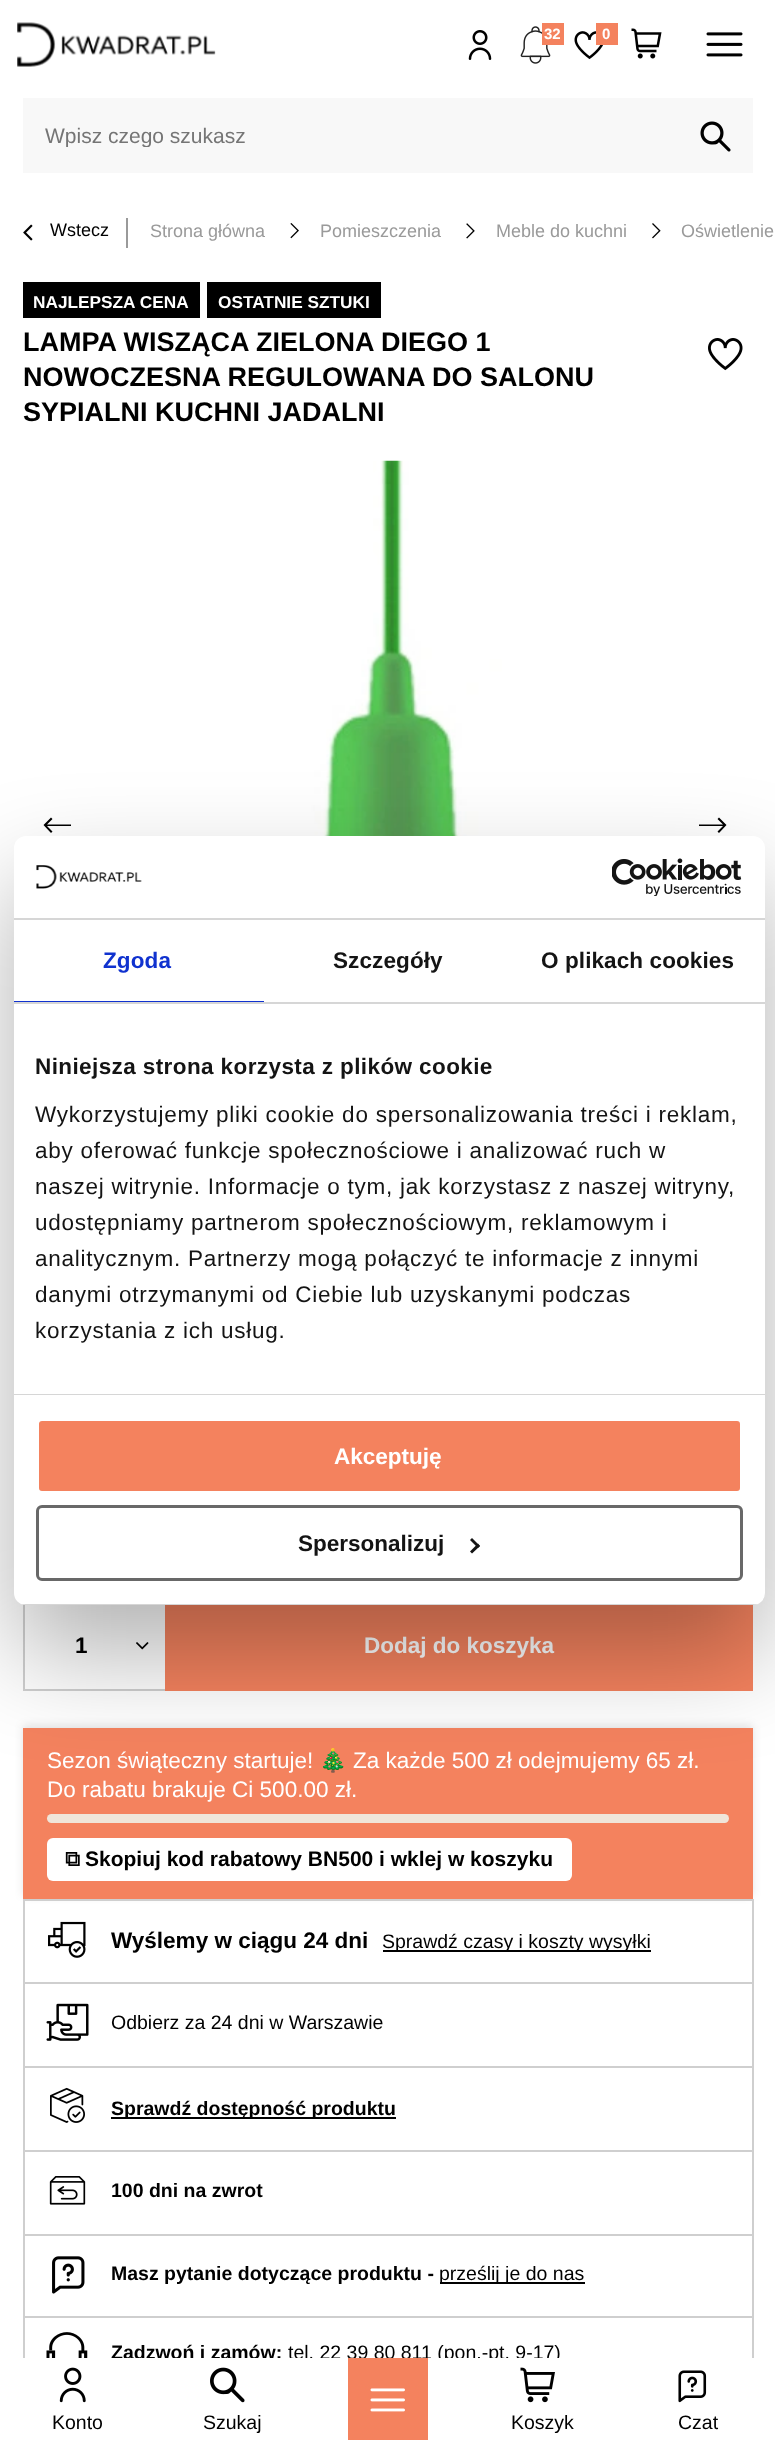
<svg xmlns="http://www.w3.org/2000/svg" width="775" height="2440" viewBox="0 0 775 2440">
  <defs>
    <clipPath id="clip1"><rect x="45" y="123" width="698" height="24"/></clipPath>
    <filter id="blur1" x="-50%" y="-200%" width="200%" height="500%"><feGaussianBlur stdDeviation="4.5"/></filter>
    <filter id="blur2" x="-50%" y="-200%" width="200%" height="500%"><feGaussianBlur stdDeviation="51"/></filter>
    <clipPath id="clip2"><rect x="14" y="836" width="751" height="769" rx="12"/></clipPath>
  </defs>
  <rect width="100%" height="100%" fill="#ffffff"/>
  <image x="17" y="22" width="199" height="45" href="img1.png"/>
  <image x="468" y="30" width="24" height="30" href="img2.png"/>
  <image x="520" y="26" width="31" height="38" href="img3.png"/>
  <rect x="542" y="23" width="22" height="22" fill="#f4825e"/>
  <text x="544" y="39" font-family="Liberation Sans" font-size="15" font-weight="bold" fill="#ffffff">32</text>
  <image x="574" y="31" width="29" height="29" href="img4.png"/>
  <rect x="596" y="23" width="22" height="22" fill="#f4825e"/>
  <text x="602" y="39" font-family="Liberation Sans" font-size="15" font-weight="bold" fill="#ffffff">0</text>
  <image x="631" y="28" width="31" height="31" href="img5.png"/>
  <image x="706" y="32" width="37" height="25" href="img6.png"/>
  <rect x="23" y="98" width="730" height="75" fill="#f8f8f8"/>
  <g clip-path="url(#clip1)">
    <text x="45" y="143" font-family="Liberation Sans" font-size="21" fill="#757575">Wpisz czego szukasz</text>
  </g>
  <image x="700" y="121" width="31" height="31" href="img7.png"/>
  <image x="23" y="224" width="10" height="17" href="img8.png"/>
  <text x="50" y="236" font-family="Liberation Sans" font-size="18" fill="#000000">Wstecz</text>
  <rect x="126" y="218" width="2" height="30" fill="#9a9a9a"/>
  <text x="150" y="237" font-family="Liberation Sans" font-size="18" fill="#9a9a9a">Strona główna</text>
  <image x="290" y="223" width="9" height="16" href="img9.png"/>
  <text x="320" y="237" font-family="Liberation Sans" font-size="18" fill="#9a9a9a">Pomieszczenia</text>
  <image x="466" y="223" width="9" height="16" href="img10.png"/>
  <text x="496" y="237" font-family="Liberation Sans" font-size="18" fill="#9a9a9a">Meble do kuchni</text>
  <image x="652" y="223" width="9" height="16" href="img11.png"/>
  <text x="681" y="237" font-family="Liberation Sans" font-size="18" fill="#9a9a9a">Oświetlenie</text>
  <rect x="23" y="282" width="177" height="36" fill="#000000"/>
  <text x="33" y="308" font-family="Liberation Sans" font-size="17.25" font-weight="bold" fill="#ffffff">NAJLEPSZA CENA</text>
  <rect x="207" y="282" width="174" height="36" fill="#000000"/>
  <text x="218" y="308" font-family="Liberation Sans" font-size="17.25" font-weight="bold" fill="#ffffff">OSTATNIE SZTUKI</text>
  <text x="23" y="351" font-family="Liberation Sans" font-size="27" font-weight="bold" fill="#000000">LAMPA WISZĄCA ZIELONA DIEGO 1</text>
  <text x="23" y="386" font-family="Liberation Sans" font-size="27" font-weight="bold" fill="#000000">NOWOCZESNA REGULOWANA DO SALONU</text>
  <text x="23" y="421" font-family="Liberation Sans" font-size="27" font-weight="bold" fill="#000000">SYPIALNI KUCHNI JADALNI</text>
  <image x="708" y="338" width="35" height="33" href="img12.png"/>
  <image x="277" y="460" width="235" height="376" href="img13.png"/>
  <path d="M51 833L52.5 831.5L47 826H71V824.5H47L52.5 819L51 817.5L43.5 825Z" fill="#000000"/>
  <path d="M719 817.5L717.5 819L723 824.5H699V826H723L717.5 831.5L719 833L726.5 825Z" fill="#000000"/>
  <rect x="23" y="1689" width="142" height="2" fill="#cfcfcf"/>
  <rect x="23" y="1601" width="2" height="90" fill="#cfcfcf"/>
  <text x="75" y="1653" font-family="Liberation Sans" font-size="22.5" font-weight="bold" fill="#000000">1</text>
  <image x="136" y="1642" width="13" height="8" href="img14.png"/>
  <rect x="165" y="1605" width="588" height="86" fill="#f4825e"/>
  <text x="364" y="1653" font-family="Liberation Sans" font-size="22.5" font-weight="bold" fill="#ffffff">Dodaj do koszyka</text>
  <rect x="23" y="1725" width="730" height="171" fill="#000000" fill-opacity="0.1" filter="url(#blur1)"/>
  <rect x="23" y="1728" width="730" height="171" fill="#f4825e"/>
  <text x="47" y="1768" font-family="Liberation Sans" font-size="22.5" fill="#ffffff">Sezon świąteczny startuje!</text>
  <text x="319" y="1768" font-family="Noto Color Emoji" font-size="22.5" fill="#ffffff">🎄</text>
  <text x="353" y="1768" font-family="Liberation Sans" font-size="22.5" fill="#ffffff">Za każde 500 zł odejmujemy 65 zł.</text>
  <text x="47" y="1797" font-family="Liberation Sans" font-size="22.5" fill="#ffffff">Do rabatu brakuje Ci 500.00 zł.</text>
  <rect x="47" y="1814" width="682" height="9" rx="4.5" fill="#f0e5d9"/>
  <rect x="47" y="1838" width="525" height="43" rx="6" fill="#ffffff"/>
  <text x="65" y="1866" font-family="FreeSerif" font-size="21" font-weight="bold" fill="#000000">⧉</text>
  <text x="85" y="1866" font-family="Liberation Sans" font-size="21" font-weight="bold" fill="#000000">Skopiuj kod rabatowy BN500 i wklej w koszyku</text>
  <rect x="23" y="1899" width="730" height="2" fill="#cfcfcf"/>
  <rect x="752" y="1899" width="2" height="83" fill="#cfcfcf"/>
  <rect x="23" y="1899" width="2" height="83" fill="#cfcfcf"/>
  <image x="48" y="1921" width="38" height="37" href="img15.png"/>
  <text x="111" y="1948" font-family="Liberation Sans" font-size="22.5" font-weight="bold" fill="#000000">Wyślemy w ciągu 24 dni</text>
  <rect x="383" y="1950" width="268" height="2" fill="#000000"/>
  <text x="382" y="1948" font-family="Liberation Sans" font-size="19.5" fill="#000000">Sprawdź czasy i koszty wysyłki</text>
  <rect x="23" y="1982" width="730" height="2" fill="#cfcfcf"/>
  <rect x="752" y="1982" width="2" height="84" fill="#cfcfcf"/>
  <rect x="23" y="1982" width="2" height="84" fill="#cfcfcf"/>
  <image x="46" y="2003" width="43" height="38" href="img16.png"/>
  <text x="111" y="2029" font-family="Liberation Sans" font-size="19.5" fill="#000000">Odbierz za 24 dni w Warszawie</text>
  <rect x="23" y="2066" width="730" height="2" fill="#cfcfcf"/>
  <rect x="752" y="2066" width="2" height="84" fill="#cfcfcf"/>
  <rect x="23" y="2066" width="2" height="84" fill="#cfcfcf"/>
  <image x="50" y="2087" width="35" height="36" href="img17.png"/>
  <rect x="111" y="2117" width="285" height="2" fill="#000000"/>
  <text x="111" y="2115" font-family="Liberation Sans" font-size="19.5" font-weight="bold" fill="#000000">Sprawdź dostępność produktu</text>
  <rect x="23" y="2150" width="730" height="2" fill="#cfcfcf"/>
  <rect x="752" y="2150" width="2" height="84" fill="#cfcfcf"/>
  <rect x="23" y="2150" width="2" height="84" fill="#cfcfcf"/>
  <image x="49" y="2176" width="37" height="29" href="img18.png"/>
  <text x="111" y="2197" font-family="Liberation Sans" font-size="19.5" font-weight="bold" fill="#000000">100 dni na zwrot</text>
  <rect x="23" y="2234" width="730" height="2" fill="#cfcfcf"/>
  <rect x="752" y="2234" width="2" height="82" fill="#cfcfcf"/>
  <rect x="23" y="2234" width="2" height="82" fill="#cfcfcf"/>
  <image x="52" y="2256" width="33" height="38" href="img19.png"/>
  <text x="111" y="2280" font-family="Liberation Sans" font-size="19.5" font-weight="bold" fill="#000000">Masz pytanie dotyczące produktu -</text>
  <rect x="440" y="2282" width="145" height="2" fill="#000000"/>
  <text x="439" y="2280" font-family="Liberation Sans" font-size="19.5" fill="#000000">prześlij je do nas</text>
  <rect x="23" y="2316" width="730" height="2" fill="#cfcfcf"/>
  <rect x="752" y="2316" width="2" height="42" fill="#cfcfcf"/>
  <rect x="23" y="2316" width="2" height="42" fill="#cfcfcf"/>
  <image x="46" y="2332" width="42" height="26" href="img20.png"/>
  <text x="111" y="2359" font-family="Liberation Sans" font-size="19.5" font-weight="bold" fill="#000000">Zadzwoń i zamów:</text>
  <text x="288" y="2359" font-family="Liberation Sans" font-size="19.5" fill="#000000">tel. 22 39 80 811 (pon.-pt. 9-17)</text>
  <rect x="111" y="2358" width="448" height="6" fill="#ffffff"/>
  <image x="59" y="2367" width="27" height="36" href="img21.png"/>
  <text x="52" y="2429" font-family="Liberation Sans" font-size="19.5" fill="#000000">Konto</text>
  <image x="210" y="2367" width="35" height="36" href="img22.png"/>
  <text x="203" y="2429" font-family="Liberation Sans" font-size="19.5" fill="#000000">Szukaj</text>
  <rect x="348" y="2358" width="80" height="82" fill="#f4825e"/>
  <image x="370" y="2388" width="35" height="24" href="img23.png"/>
  <image x="520" y="2367" width="35" height="36" href="img24.png"/>
  <text x="511" y="2429" font-family="Liberation Sans" font-size="19.5" fill="#000000">Koszyk</text>
  <image x="678" y="2370" width="29" height="33" href="img25.png"/>
  <text x="678" y="2429" font-family="Liberation Sans" font-size="19.5" fill="#000000">Czat</text>
  <rect x="14" y="884" width="751" height="769" rx="12" fill="#000000" fill-opacity="0.3" filter="url(#blur2)"/>
  <rect x="14" y="836" width="751" height="769" rx="12" fill="#ffffff"/>
  <rect x="14" y="918" width="751" height="2" fill="#d6d6d6"/>
  <image x="36" y="865" width="106" height="24" href="img26.png"/>
  <image x="612" y="858" width="130" height="38" href="img27.png"/>
  <rect x="14" y="1002" width="751" height="2" fill="#d6d6d6"/>
  <rect x="14" y="1001" width="250" height="1" fill="#1032cf"/>
  <text x="103" y="968" font-family="Liberation Sans" font-size="22.5" font-weight="bold" letter-spacing="0.1" fill="#1032cf">Zgoda</text>
  <text x="333" y="968" font-family="Liberation Sans" font-size="22.5" font-weight="bold" letter-spacing="0.1" fill="#141414">Szczegóły</text>
  <text x="541" y="968" font-family="Liberation Sans" font-size="22.5" font-weight="bold" letter-spacing="0.1" fill="#141414">O plikach cookies</text>
  <rect x="14" y="1394" width="751" height="1" fill="#d6d6d6"/>
  <text x="35" y="1074" font-family="Liberation Sans" font-size="22.5" font-weight="bold" letter-spacing="0.4" fill="#141414">Niniejsza strona korzysta z plików cookie</text>
  <text x="35" y="1122" font-family="Liberation Sans" font-size="22.5" letter-spacing="0.75" fill="#141414">Wykorzystujemy pliki cookie do spersonalizowania treści i reklam,</text>
  <text x="35" y="1158" font-family="Liberation Sans" font-size="22.5" letter-spacing="0.75" fill="#141414">aby oferować funkcje społecznościowe i analizować ruch w</text>
  <text x="35" y="1194" font-family="Liberation Sans" font-size="22.5" letter-spacing="0.75" fill="#141414">naszej witrynie. Informacje o tym, jak korzystasz z naszej witryny,</text>
  <text x="35" y="1230" font-family="Liberation Sans" font-size="22.5" letter-spacing="0.75" fill="#141414">udostępniamy partnerom społecznościowym, reklamowym i</text>
  <text x="35" y="1266" font-family="Liberation Sans" font-size="22.5" letter-spacing="0.75" fill="#141414">analitycznym. Partnerzy mogą połączyć te informacje z innymi</text>
  <text x="35" y="1302" font-family="Liberation Sans" font-size="22.5" letter-spacing="0.75" fill="#141414">danymi otrzymanymi od Ciebie lub uzyskanymi podczas</text>
  <text x="35" y="1338" font-family="Liberation Sans" font-size="22.5" letter-spacing="0.75" fill="#141414">korzystania z ich usług.</text>
  <g clip-path="url(#clip2)">
    <rect x="14" y="1604" width="751" height="1" fill="#d6d6d6"/>
  </g>
  <rect x="37.5" y="1419.5" width="704" height="73" rx="4.5" fill="#f4825e" stroke="#ffffff" stroke-width="3"/>
  <text x="334" y="1464" font-family="Liberation Sans" font-size="22.5" font-weight="bold" fill="#ffffff">Akceptuję</text>
  <rect x="37.5" y="1506.5" width="704" height="73" rx="4.5" fill="none" stroke="#686868" stroke-width="3"/>
  <text x="298" y="1551" font-family="Liberation Sans" font-size="22.5" font-weight="bold" fill="#141414">Spersonalizuj</text>
  <path d="M472 1538L480 1546L478 1548L470 1540Z" fill="#141414"/>
  <path d="M478 1543.5L480 1546L472 1553.5L470 1551.5Z" fill="#141414"/>
</svg>
